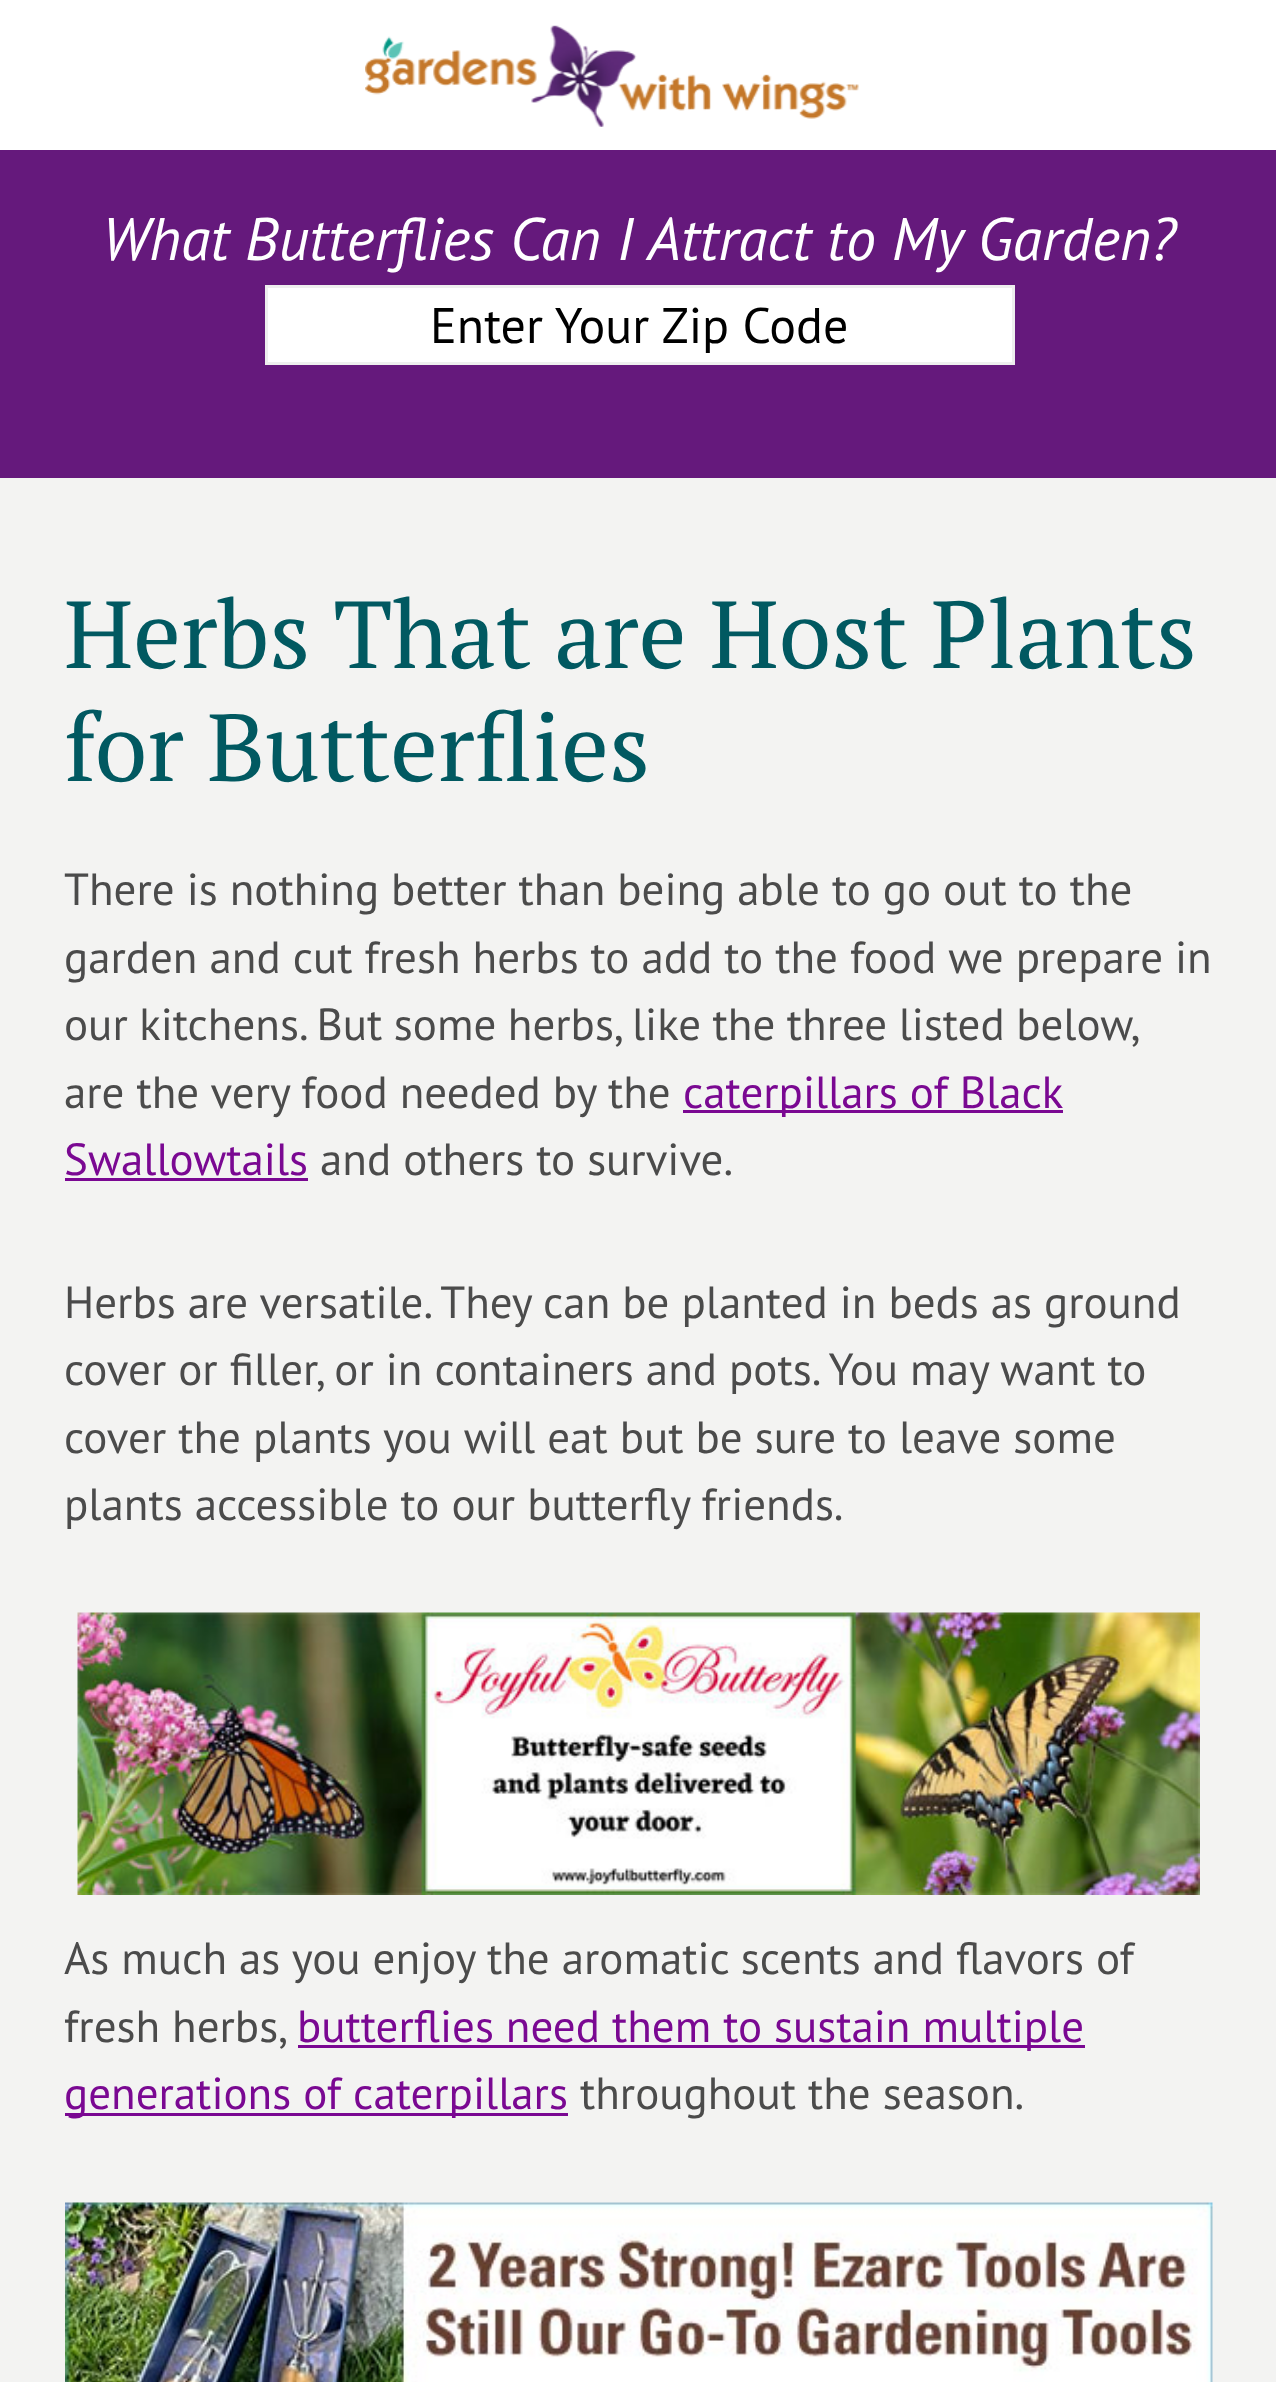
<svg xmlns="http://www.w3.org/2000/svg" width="1276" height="2382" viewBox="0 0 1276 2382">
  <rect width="100%" height="100%" fill="#f3f3f2"/>
  <rect x="0" y="0" width="1276" height="150" fill="#ffffff"/>
  <image x="365" y="25" width="494" height="102" href="img1.png"/>
  <rect x="0" y="150" width="1276" height="328" fill="#65197c"/>
  <text x="102" y="260" font-family="PT Sans" font-size="60" font-style="italic" fill="#ffffff">What Butterflies Can I Attract to My Garden?</text>
  <rect x="266.5" y="286.5" width="747" height="77" fill="#ffffff" stroke="#eeeeee" stroke-width="3"/>
  <text x="430" y="343" font-family="PT Sans" font-size="50" fill="#000000">Enter Your Zip Code</text>
  <text x="64" y="668" font-family="PT Serif" font-size="95" fill="#015961">Herbs That are Host Plants</text>
  <text x="64" y="781" font-family="PT Serif" font-size="95" fill="#015961">for Butterflies</text>
  <text x="64" y="905" font-family="PT Sans" font-size="45" fill="#4b4b4b">There is nothing better than being able to go out to the</text>
  <text x="64" y="973" font-family="PT Sans" font-size="45" fill="#4b4b4b">garden and cut fresh herbs to add to the food we prepare in</text>
  <text x="64" y="1040" word-spacing="-0.5" font-family="PT Sans" font-size="45" fill="#4b4b4b">our kitchens. But some herbs, like the three listed below,</text>
  <text x="64" y="1108" font-family="PT Sans" font-size="45" fill="#4b4b4b">are the very food needed by the</text>
  <rect x="683" y="1110" width="380" height="3" fill="#7a0892"/>
  <text x="683" y="1108" font-family="PT Sans" font-size="45" fill="#7a0892">caterpillars of Black</text>
  <text x="64" y="1175" font-family="PT Sans" font-size="45" fill="#7a0892">Swallowtails</text>
  <rect x="65" y="1178" width="243" height="3" fill="#7a0892"/>
  <text x="320" y="1175" font-family="PT Sans" font-size="45" fill="#4b4b4b">and others to survive.</text>
  <text x="64" y="1318" font-family="PT Sans" font-size="45" fill="#4b4b4b">Herbs are versatile. They can be planted in beds as ground</text>
  <text x="64" y="1385" font-family="PT Sans" font-size="45" fill="#4b4b4b">cover or filler, or in containers and pots. You may want to</text>
  <text x="64" y="1453" font-family="PT Sans" font-size="45" fill="#4b4b4b">cover the plants you will eat but be sure to leave some</text>
  <text x="64" y="1520" font-family="PT Sans" font-size="45" fill="#4b4b4b">plants accessible to our butterfly friends.</text>
  <image x="77" y="1612" width="1123" height="283" href="img2.png"/>
  <text x="64" y="1974" font-family="PT Sans" font-size="45" fill="#4b4b4b">As much as you enjoy the aromatic scents and flavors of</text>
  <text x="64" y="2042" font-family="PT Sans" font-size="45" fill="#4b4b4b">fresh herbs,</text>
  <rect x="298" y="2045" width="787" height="3" fill="#7a0892"/>
  <text x="297" y="2042" font-family="PT Sans" font-size="45" fill="#7a0892">butterflies need them to sustain multiple</text>
  <rect x="65" y="2113" width="503" height="3" fill="#7a0892"/>
  <text x="64" y="2109" font-family="PT Sans" font-size="45" fill="#7a0892">generations of caterpillars</text>
  <text x="580" y="2109" font-family="PT Sans" font-size="45" fill="#4b4b4b">throughout the season.</text>
  <image x="65" y="2202" width="1148" height="180" href="img3.png"/>
</svg>
